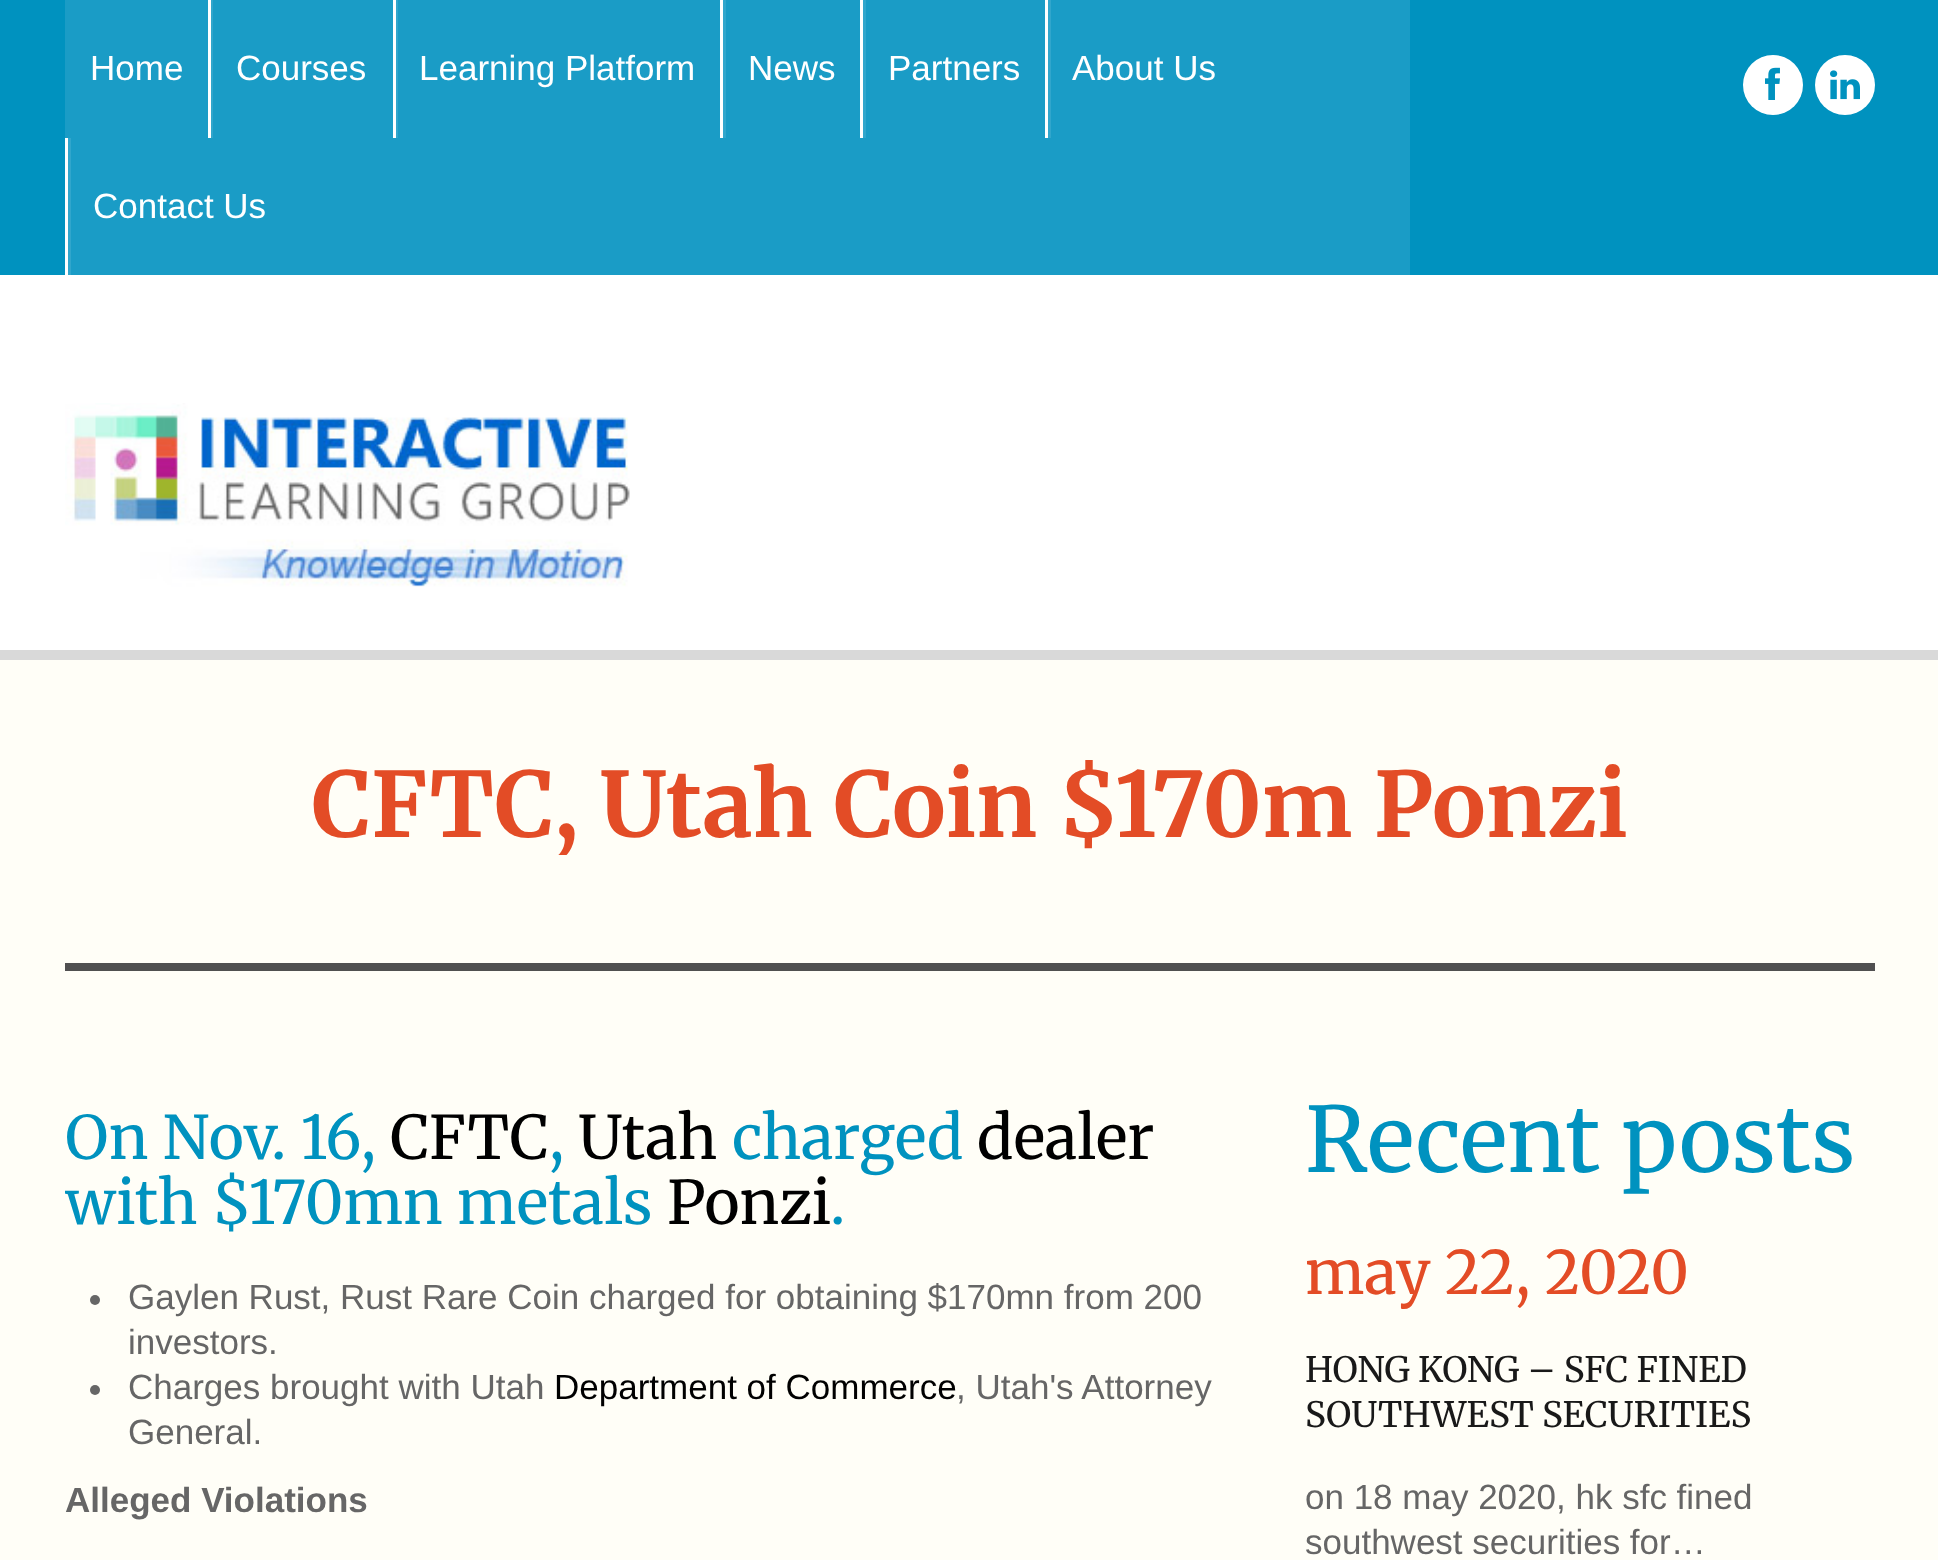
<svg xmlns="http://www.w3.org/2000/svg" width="1938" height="1560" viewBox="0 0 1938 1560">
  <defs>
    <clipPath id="clip1"><rect x="65" y="760" width="1810" height="95"/></clipPath>
    <clipPath id="clip2"><rect x="65" y="1095" width="1190" height="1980"/></clipPath>
  </defs>
  <rect width="100%" height="100%" fill="#fffef7"/>
  <rect x="0" y="275" width="1938" height="375" fill="#ffffff"/>
  <rect x="0" y="650" width="1938" height="10" fill="#d9d9d9"/>
  <rect x="0" y="0" width="1938" height="275" fill="#0092bf"/>
  <rect x="65" y="0" width="1345" height="275" fill="#1a9cc6"/>
  <text x="90" y="80" font-family="Liberation Sans" font-size="35" fill="#ffffff">Home</text>
  <rect x="211" y="0" width="2" height="138" fill="#31a6cc"/>
  <rect x="208" y="0" width="3" height="138" fill="#ffffff"/>
  <text x="236" y="80" font-family="Liberation Sans" font-size="35" fill="#ffffff">Courses</text>
  <rect x="396" y="0" width="2" height="138" fill="#31a6cc"/>
  <rect x="393" y="0" width="3" height="138" fill="#ffffff"/>
  <text x="419" y="80" font-family="Liberation Sans" font-size="35" fill="#ffffff">Learning Platform</text>
  <rect x="723" y="0" width="3" height="138" fill="#31a6cc"/>
  <rect x="720" y="0" width="3" height="138" fill="#ffffff"/>
  <text x="748" y="80" font-family="Liberation Sans" font-size="35" fill="#ffffff">News</text>
  <rect x="863" y="0" width="3" height="138" fill="#31a6cc"/>
  <rect x="860" y="0" width="3" height="138" fill="#ffffff"/>
  <text x="888" y="80" font-family="Liberation Sans" font-size="35" fill="#ffffff">Partners</text>
  <rect x="1048" y="0" width="3" height="138" fill="#31a6cc"/>
  <rect x="1045" y="0" width="3" height="138" fill="#ffffff"/>
  <text x="1072" y="80" font-family="Liberation Sans" font-size="35" fill="#ffffff">About Us</text>
  <rect x="68" y="138" width="3" height="137" fill="#31a6cc"/>
  <rect x="65" y="138" width="3" height="137" fill="#ffffff"/>
  <text x="93" y="218" font-family="Liberation Sans" font-size="35" fill="#ffffff">Contact Us</text>
  <circle cx="1773" cy="85" r="30" fill="#ffffff"/>
  <image x="1765" y="67" width="15" height="33" href="img1.png"/>
  <circle cx="1845" cy="85" r="30" fill="#ffffff"/>
  <image x="1830" y="70" width="30" height="30" href="img2.png"/>
  <image x="65" y="403" width="565" height="184" href="img3.png"/>
  <rect x="65" y="963" width="1810" height="8" fill="#505050"/>
  <g clip-path="url(#clip1)">
    <text x="312" y="837" font-family="Merriweather" font-size="90" font-weight="300" fill="#e34c26">CFTC, Utah Coin $170m Ponzi</text>
  </g>
  <text x="65" y="1159" font-family="'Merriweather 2'" font-size="60" font-weight="300" fill="#0092bf">On Nov. 16,</text>
  <text x="390" y="1159" font-family="'Merriweather 2'" font-size="60" font-weight="300" fill="#000000">CFTC</text>
  <text x="549" y="1159" font-family="'Merriweather 2'" font-size="60" font-weight="300" fill="#0092bf">,</text>
  <text x="578" y="1159" font-family="'Merriweather 2'" font-size="60" font-weight="300" fill="#000000">Utah</text>
  <text x="732" y="1159" font-family="'Merriweather 2'" font-size="60" font-weight="300" fill="#0092bf">charged</text>
  <text x="977" y="1159" font-family="'Merriweather 2'" font-size="60" font-weight="300" fill="#000000">dealer</text>
  <g clip-path="url(#clip2)">
    <text x="65" y="1224" font-family="'Merriweather 2'" font-size="60" font-weight="300" fill="#0092bf">with $170mn metals</text>
  </g>
  <text x="667" y="1224" font-family="'Merriweather 2'" font-size="60" font-weight="300" fill="#000000">Ponzi</text>
  <text x="830" y="1224" font-family="'Merriweather 2'" font-size="60" font-weight="300" fill="#0092bf">.</text>
  <circle cx="95" cy="1300" r="5" fill="#666666"/>
  <text x="128" y="1309" font-family="Liberation Sans" font-size="35" fill="#666666">Gaylen Rust, Rust Rare Coin charged for obtaining $170mn from 200</text>
  <text x="128" y="1354" font-family="Liberation Sans" font-size="35" fill="#666666">investors.</text>
  <circle cx="95" cy="1390" r="5" fill="#666666"/>
  <text x="128" y="1399" font-family="Liberation Sans" font-size="35" fill="#666666">Charges brought with Utah</text>
  <text x="554" y="1399" font-family="Liberation Sans" font-size="35" fill="#000000">Department of Commerce</text>
  <text x="956" y="1399" font-family="Liberation Sans" font-size="35" fill="#666666">, Utah's Attorney</text>
  <text x="128" y="1444" font-family="Liberation Sans" font-size="35" fill="#666666">General.</text>
  <text x="65" y="1512" font-family="Liberation Sans" font-size="35" font-weight="bold" fill="#666666">Alleged Violations</text>
  <text x="1305" y="1172" font-family="'Merriweather 2'" font-size="90" font-weight="300" fill="#0092bf">Recent posts</text>
  <text x="1305" y="1294" font-family="'Merriweather 2'" font-size="60" font-weight="300" fill="#e34c26">may 22, 2020</text>
  <text x="1305" y="1382" font-family="'Merriweather 2'" font-size="35" font-weight="300" fill="#191919">HONG KONG – SFC FINED</text>
  <text x="1305" y="1427" font-family="'Merriweather 2'" font-size="35" font-weight="300" fill="#191919">SOUTHWEST SECURITIES</text>
  <text x="1305" y="1509" font-family="Liberation Sans" font-size="35" fill="#666666">on 18 may 2020, hk sfc fined</text>
  <text x="1305" y="1554" font-family="Liberation Sans" font-size="35" fill="#666666">southwest securities for…</text>
</svg>
